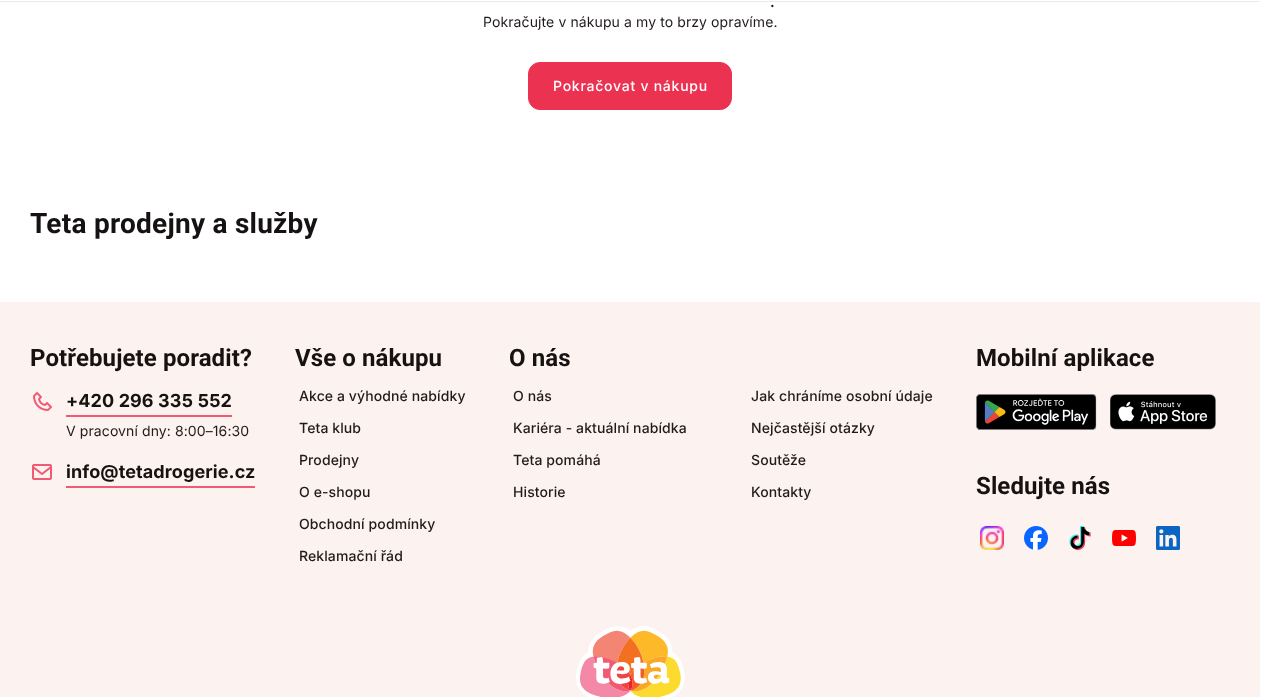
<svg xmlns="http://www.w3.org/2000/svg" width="1275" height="697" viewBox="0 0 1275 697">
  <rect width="100%" height="100%" fill="#ffffff"/>
  <rect x="0" y="1" width="1260" height="1" fill="#efe9e8"/>
  <text x="770" y="7" font-family="Inter" font-size="14" font-weight="bold" letter-spacing="0.1" fill="#221b1c">.</text>
  <text x="483" y="27" font-family="Inter" font-size="14" letter-spacing="0.1" fill="#221b1c">Pokračujte v nákupu a my to brzy opravíme.</text>
  <rect x="528.5" y="62.5" width="203" height="47" rx="11.5" fill="#ec3251" stroke="#ec3251"/>
  <text x="553" y="91" font-family="Inter" font-size="14" font-weight="500" letter-spacing="0.75" fill="#ffffff">Pokračovat v nákupu</text>
  <text x="30" y="233" font-family="Roboto" font-size="28" font-weight="bold" letter-spacing="0.25" fill="#161212">Teta prodejny a služby</text>
  <rect x="0" y="302" width="1260" height="395" fill="#fcf2ef"/>
  <text x="30" y="366" font-family="Roboto" font-size="24" font-weight="bold" letter-spacing="0.1" fill="#161212">Potřebujete poradit?</text>
  <image x="33" y="392" width="19" height="19" href="img1.png"/>
  <text x="66" y="407" font-family="Inter" font-size="18" font-weight="bold" letter-spacing="0.1" fill="#161212">+420 296 335 552</text>
  <rect x="66" y="415" width="166" height="2" fill="#f05b73"/>
  <text x="66" y="436" font-family="Inter" font-size="14" letter-spacing="0.1" fill="#221b1c">V pracovní dny: 8:00–16:30</text>
  <image x="32" y="464" width="20" height="16" href="img2.png"/>
  <text x="66" y="478" font-family="Inter" font-size="18" font-weight="bold" letter-spacing="0.1" fill="#161212">info@tetadrogerie.cz</text>
  <rect x="66" y="486" width="189" height="2" fill="#f05b73"/>
  <text x="295" y="366" font-family="Roboto" font-size="24" font-weight="bold" letter-spacing="0.1" fill="#161212">Vše o nákupu</text>
  <text x="299" y="401" font-family="Inter" font-size="14" font-weight="500" letter-spacing="0.1" fill="#221b1c">Akce a výhodné nabídky</text>
  <text x="299" y="433" font-family="Inter" font-size="14" font-weight="500" letter-spacing="0.1" fill="#221b1c">Teta klub</text>
  <text x="299" y="465" font-family="Inter" font-size="14" font-weight="500" letter-spacing="0.1" fill="#221b1c">Prodejny</text>
  <text x="299" y="497" font-family="Inter" font-size="14" font-weight="500" letter-spacing="0.1" fill="#221b1c">O e-shopu</text>
  <text x="299" y="529" font-family="Inter" font-size="14" font-weight="500" letter-spacing="0.1" fill="#221b1c">Obchodní podmínky</text>
  <text x="299" y="561" font-family="Inter" font-size="14" font-weight="500" letter-spacing="0.1" fill="#221b1c">Reklamační řád</text>
  <text x="509" y="366" font-family="Roboto" font-size="24" font-weight="bold" letter-spacing="0.1" fill="#161212">O nás</text>
  <text x="513" y="401" font-family="Inter" font-size="14" font-weight="500" letter-spacing="0.1" fill="#221b1c">O nás</text>
  <text x="751" y="401" font-family="Inter" font-size="14" font-weight="500" letter-spacing="0.1" fill="#221b1c">Jak chráníme osobní údaje</text>
  <text x="513" y="433" font-family="Inter" font-size="14" font-weight="500" letter-spacing="0.1" fill="#221b1c">Kariéra - aktuální nabídka</text>
  <text x="751" y="433" font-family="Inter" font-size="14" font-weight="500" letter-spacing="0.1" fill="#221b1c">Nejčastější otázky</text>
  <text x="513" y="465" font-family="Inter" font-size="14" font-weight="500" letter-spacing="0.1" fill="#221b1c">Teta pomáhá</text>
  <text x="751" y="465" font-family="Inter" font-size="14" font-weight="500" letter-spacing="0.1" fill="#221b1c">Soutěže</text>
  <text x="513" y="497" font-family="Inter" font-size="14" font-weight="500" letter-spacing="0.1" fill="#221b1c">Historie</text>
  <text x="751" y="497" font-family="Inter" font-size="14" font-weight="500" letter-spacing="0.1" fill="#221b1c">Kontakty</text>
  <text x="976" y="366" font-family="Roboto" font-size="24" font-weight="bold" letter-spacing="0.1" fill="#161212">Mobilní aplikace</text>
  <image x="976" y="394" width="121" height="36" href="img3.png"/>
  <image x="1110" y="394" width="106" height="36" href="img4.png"/>
  <text x="976" y="494" font-family="Roboto" font-size="24" font-weight="bold" letter-spacing="0.1" fill="#161212">Sledujte nás</text>
  <image x="980" y="526" width="24" height="24" href="img5.png"/>
  <image x="1024" y="526" width="24" height="24" href="img6.png"/>
  <image x="1069" y="526" width="22" height="24" href="img7.png"/>
  <image x="1112" y="530" width="24" height="16" href="img8.png"/>
  <image x="1156" y="526" width="24" height="24" href="img9.png"/>
  <image x="576" y="626" width="109" height="71" href="img10.png"/>
</svg>
